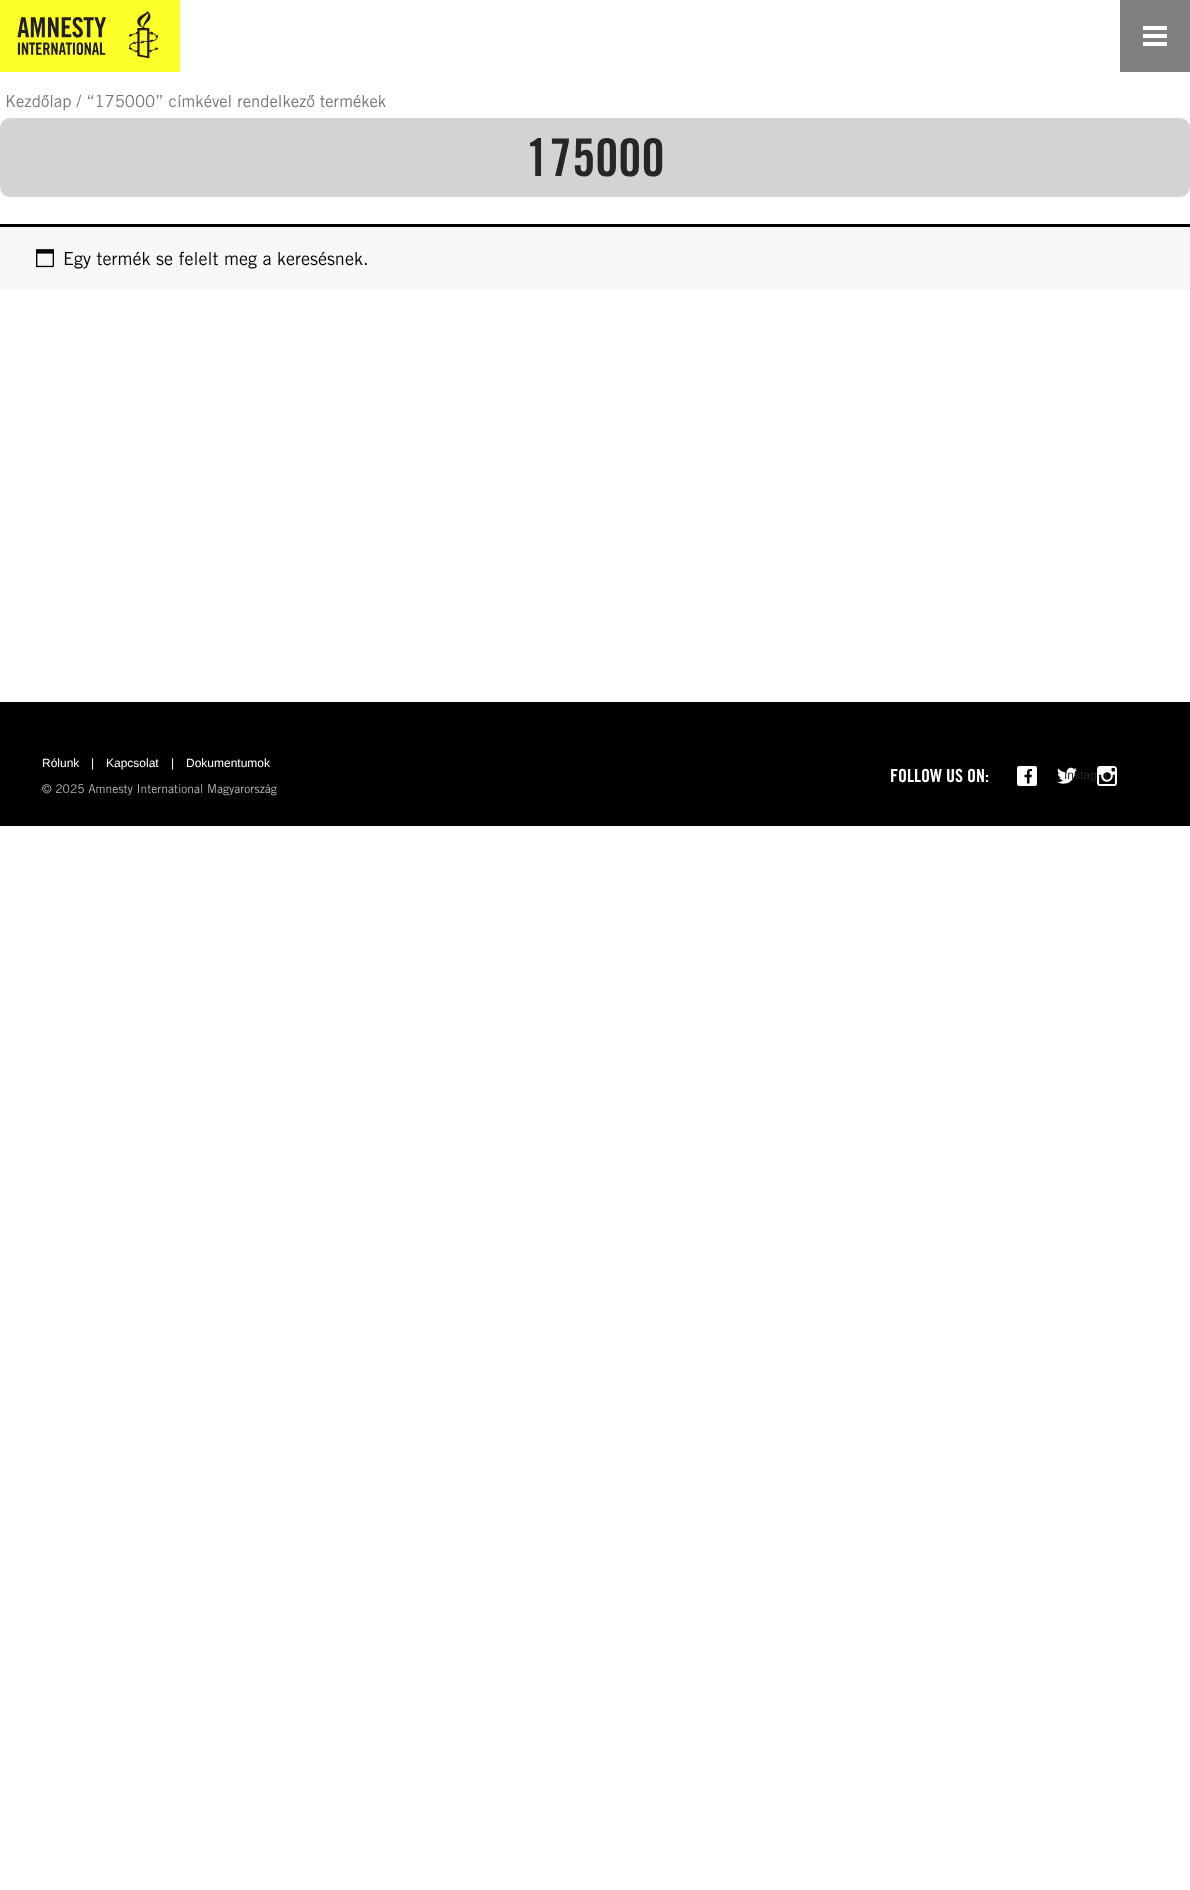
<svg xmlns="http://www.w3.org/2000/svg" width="1190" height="1890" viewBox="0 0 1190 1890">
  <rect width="100%" height="100%" fill="#ffffff"/>
  <rect x="0" y="0" width="180" height="72" fill="#fdff28"/>
  <image x="17" y="10" width="163" height="50" href="img1.png"/>
  <rect x="1120" y="0" width="70" height="72" fill="#7f7f7f"/>
  <image x="1143" y="26" width="24" height="20" href="img2.png"/>
  <text x="5" y="107" font-family="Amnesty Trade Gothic" font-size="16.6" fill="#767676">Kezdőlap / “175000” címkével rendelkező termékek</text>
  <rect x="0" y="118" width="1190" height="79" rx="10" fill="#d3d3d3"/>
  <text x="526" y="176" font-family="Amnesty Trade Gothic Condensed" font-size="52" font-weight="bold" fill="#262626">175000</text>
  <rect x="0" y="227" width="1190" height="63" fill="#f7f7f7"/>
  <rect x="0" y="224" width="1190" height="3" fill="#000000"/>
  <image x="36" y="249" width="18" height="19" href="img3.png"/>
  <text x="63" y="265" font-family="Amnesty Trade Gothic" font-size="18" fill="#000000">Egy termék se felelt meg a keresésnek.</text>
  <rect x="0" y="702" width="1190" height="124" fill="#000000"/>
  <text x="42" y="767" font-family="Liberation Sans" font-size="12" fill="#ffffff">Rólunk</text>
  <text x="91" y="767" font-family="Liberation Sans" font-size="12" fill="#ffffff">|</text>
  <text x="106" y="767" font-family="Liberation Sans" font-size="12" fill="#ffffff">Kapcsolat</text>
  <text x="171" y="767" font-family="Liberation Sans" font-size="12" fill="#ffffff">|</text>
  <text x="186" y="767" font-family="Liberation Sans" font-size="12" fill="#ffffff">Dokumentumok</text>
  <text x="42" y="793" font-family="Amnesty Trade Gothic" font-size="12" fill="#b3b3b3">© 2025 Amnesty International Magyarország</text>
  <text x="890" y="782" font-family="Amnesty Trade Gothic Condensed" font-size="18" font-weight="bold" fill="#ffffff">FOLLOW US ON:</text>
  <image x="1017" y="766" width="20" height="20" href="img4.png"/>
  <image x="1057" y="767" width="20" height="17" href="img5.png"/>
  <text x="1064" y="779" font-family="Liberation Sans" font-size="12" fill="#262626">Instagra</text>
  <image x="1097" y="766" width="20" height="20" href="img6.png"/>
</svg>
